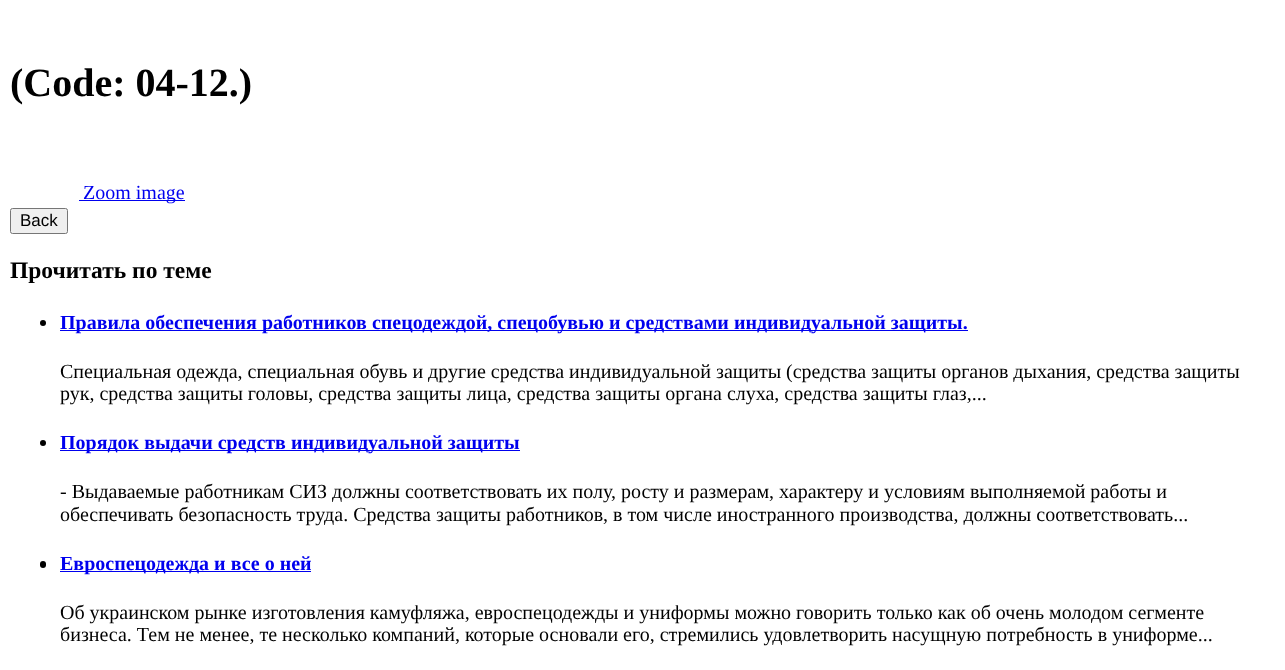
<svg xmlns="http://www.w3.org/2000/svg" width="1285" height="670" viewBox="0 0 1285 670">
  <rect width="100%" height="100%" fill="#ffffff"/>
  <text x="10" y="96" font-family="Liberation Serif" font-size="40" font-weight="bold" fill="#000000">(Code: 04-12.)</text>
  <rect x="79" y="200" width="106" height="1" fill="#0000ee"/>
  <text x="83" y="199" font-family="Liberation Serif" font-size="20" fill="#0000ee">Zoom image</text>
  <rect x="10.5" y="208.5" width="57" height="25" rx="2" fill="#efefef" stroke="#767676"/>
  <text x="20" y="226" font-family="Liberation Sans" font-size="17" fill="#000000">Back</text>
  <text x="10" y="278" font-family="Liberation Serif" font-size="23.5" font-weight="bold" fill="#000000">Прочитать по теме</text>
  <circle cx="43" cy="323" r="3" fill="#000000"/>
  <rect x="60" y="330" width="908" height="1" fill="#0000ee"/>
  <text x="60" y="329" font-family="Liberation Serif" font-size="20" font-weight="bold" fill="#0000ee">Правила обеспечения работников спецодеждой, спецобувью и средствами индивидуальной защиты.</text>
  <text x="60" y="378" font-family="Liberation Serif" font-size="20" fill="#000000">Специальная одежда, специальная обувь и другие средства индивидуальной защиты (средства защиты органов дыхания, средства защиты</text>
  <text x="60" y="400" font-family="Liberation Serif" font-size="20" fill="#000000">рук, средства защиты головы, средства защиты лица, средства защиты органа слуха, средства защиты глаз,...</text>
  <circle cx="43" cy="443" r="3" fill="#000000"/>
  <rect x="60" y="450" width="460" height="1" fill="#0000ee"/>
  <text x="60" y="449" font-family="Liberation Serif" font-size="20" font-weight="bold" fill="#0000ee">Порядок выдачи средств индивидуальной защиты</text>
  <text x="60" y="498" font-family="Liberation Serif" font-size="20" fill="#000000">- Выдаваемые работникам СИЗ должны соответствовать их полу, росту и размерам, характеру и условиям выполняемой работы и</text>
  <text x="60" y="521" font-family="Liberation Serif" font-size="20" fill="#000000">обеспечивать безопасность труда. Средства защиты работников, в том числе иностранного производства, должны соответствовать...</text>
  <rect x="40" y="561" width="6" height="7" rx="3" fill="#000000"/>
  <rect x="60" y="571" width="251" height="1" fill="#0000ee"/>
  <text x="60" y="570" font-family="Liberation Serif" font-size="20" font-weight="bold" fill="#0000ee">Евроспецодежда и все о ней</text>
  <text x="60" y="619" font-family="Liberation Serif" font-size="20" fill="#000000">Об украинском рынке изготовления камуфляжа, евроспецодежды и униформы можно говорить только как об очень молодом сегменте</text>
  <text x="60" y="641" font-family="Liberation Serif" font-size="20" fill="#000000">бизнеса. Тем не менее, те несколько компаний, которые основали его, стремились удовлетворить насущную потребность в униформе...</text>
</svg>
